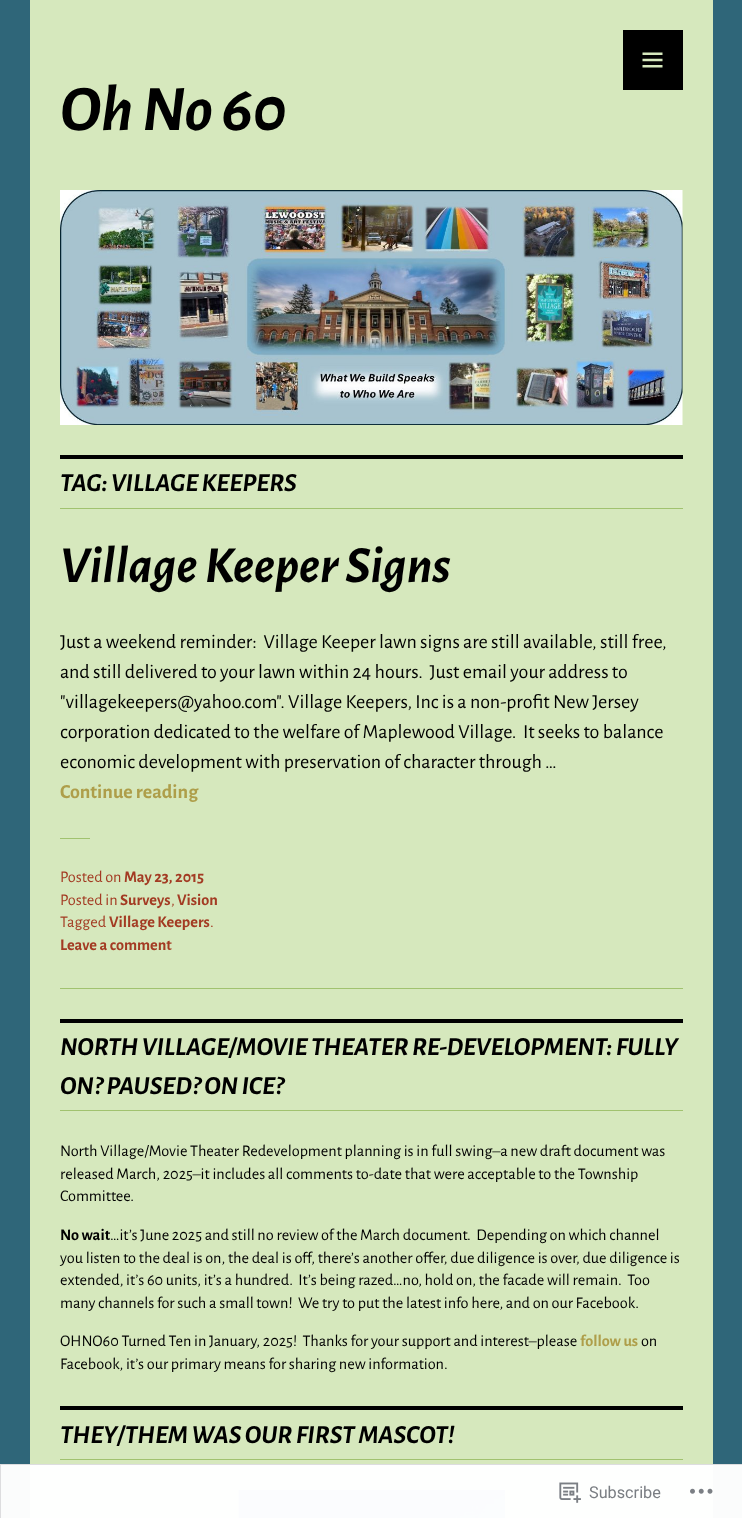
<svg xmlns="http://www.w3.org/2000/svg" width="742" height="1518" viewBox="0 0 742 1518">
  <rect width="100%" height="100%" fill="#2f6679"/>
  <rect x="0" y="1464" width="742" height="54" fill="#fbfcfc"/>
  <rect x="30" y="0" width="683" height="1464" fill="#d6e8bd"/>
  <rect x="30" y="1464" width="683" height="54" fill="#fefffe"/>
  <rect x="623" y="30" width="60" height="60" fill="#000000"/>
  <image x="642" y="52" width="21" height="16" href="img1.png"/>
  <text x="60" y="130" font-family="Alegreya Sans" font-size="65" font-weight="bold" font-style="italic" fill="#000000">Oh No 60</text>
  <image x="60" y="190" width="623" height="235" href="img2.png"/>
  <rect x="60" y="455" width="623" height="4" fill="#000000"/>
  <rect x="60" y="508" width="623" height="1" fill="#a1c26f"/>
  <text x="60" y="491" font-family="Alegreya Sans" font-size="26" font-weight="bold" font-style="italic" fill="#000000">TAG: VILLAGE KEEPERS</text>
  <rect x="60" y="988" width="623" height="1" fill="#a1c26f"/>
  <text x="60" y="582" font-family="Alegreya Sans" font-size="52" font-weight="bold" font-style="italic" fill="#000000">Village Keeper Signs</text>
  <text x="60" y="648" font-family="Alegreya Sans" font-size="20" fill="#000000" xml:space="preserve">Just a weekend reminder:  Village Keeper lawn signs are still available, still free,</text>
  <text x="60" y="678" font-family="Alegreya Sans" font-size="20" fill="#000000" xml:space="preserve">and still delivered to your lawn within 24 hours.  Just email your address to</text>
  <text x="60" y="708" font-family="Alegreya Sans" font-size="20" fill="#000000">"villagekeepers@yahoo.com". Village Keepers, Inc is a non-profit New Jersey</text>
  <text x="60" y="738" font-family="Alegreya Sans" font-size="20" fill="#000000" xml:space="preserve">corporation dedicated to the welfare of Maplewood Village.  It seeks to balance</text>
  <text x="60" y="768" font-family="Alegreya Sans" font-size="20" fill="#000000">economic development with preservation of character through …</text>
  <text x="60" y="798" font-family="Alegreya Sans" font-size="20" font-weight="bold" fill="#ae9e4a">Continue reading</text>
  <rect x="60" y="838" width="30" height="1" fill="#a1c26f"/>
  <text x="60" y="882" font-family="Alegreya Sans" font-size="16.25" fill="#a33b23">Posted on</text>
  <text x="124" y="882" font-family="Alegreya Sans" font-size="16.25" font-weight="bold" fill="#a33b23">May 23, 2015</text>
  <text x="60" y="905" font-family="Alegreya Sans" font-size="16.25" fill="#a33b23">Posted in</text>
  <text x="120" y="905" font-family="Alegreya Sans" font-size="16.25" font-weight="bold" fill="#a33b23">Surveys</text>
  <text x="171" y="905" font-family="Alegreya Sans" font-size="16.25" fill="#a33b23">,</text>
  <text x="177" y="905" font-family="Alegreya Sans" font-size="16.25" font-weight="bold" fill="#a33b23">Vision</text>
  <text x="60" y="927" font-family="Alegreya Sans" font-size="16.25" fill="#a33b23">Tagged</text>
  <text x="109" y="927" font-family="Alegreya Sans" font-size="16.25" font-weight="bold" fill="#a33b23">Village Keepers</text>
  <text x="210" y="927" font-family="Alegreya Sans" font-size="16.25" fill="#a33b23">.</text>
  <text x="60" y="950" font-family="Alegreya Sans" font-size="16.25" font-weight="bold" fill="#a33b23">Leave a comment</text>
  <rect x="60" y="1019" width="623" height="4" fill="#000000"/>
  <rect x="60" y="1110" width="623" height="1" fill="#a1c26f"/>
  <text x="60" y="1055" font-family="Alegreya Sans" font-size="26" font-weight="bold" font-style="italic" fill="#000000">NORTH VILLAGE/MOVIE THEATER RE-DEVELOPMENT: FULLY</text>
  <text x="60" y="1094" font-family="Alegreya Sans" font-size="26" font-weight="bold" font-style="italic" fill="#000000">ON? PAUSED? ON ICE?</text>
  <text x="60" y="1156" font-family="Alegreya Sans" font-size="16.25" fill="#000000">North Village/Movie Theater Redevelopment planning is in full swing–a new draft document was</text>
  <text x="60" y="1179" font-family="Alegreya Sans" font-size="16.25" fill="#000000">released March, 2025–it includes all comments to-date that were acceptable to the Township</text>
  <text x="60" y="1201" font-family="Alegreya Sans" font-size="16.25" fill="#000000">Committee.</text>
  <text x="60" y="1240" font-family="Alegreya Sans" font-size="16.25" font-weight="bold" fill="#000000">No wait</text>
  <text x="110" y="1240" font-family="Alegreya Sans" font-size="16.25" fill="#000000" xml:space="preserve">…it’s June 2025 and still no review of the March document.  Depending on which channel</text>
  <text x="60" y="1263" font-family="Alegreya Sans" font-size="16.25" fill="#000000">you listen to the deal is on, the deal is off, there’s another offer, due diligence is over, due diligence is</text>
  <text x="60" y="1285" font-family="Alegreya Sans" font-size="16.25" fill="#000000" xml:space="preserve">extended, it’s 60 units, it’s a hundred.  It’s being razed…no, hold on, the facade will remain.  Too</text>
  <text x="60" y="1308" font-family="Alegreya Sans" font-size="16.25" fill="#000000" xml:space="preserve">many channels for such a small town!  We try to put the latest info here, and on our Facebook.</text>
  <text x="60" y="1346" font-family="Alegreya Sans" font-size="16.25" fill="#000000" xml:space="preserve">OHNO60 Turned Ten in January, 2025!  Thanks for your support and interest–please</text>
  <text x="580" y="1346" font-family="Alegreya Sans" font-size="16.25" font-weight="bold" fill="#ae9e4a">follow us</text>
  <text x="641" y="1346" font-family="Alegreya Sans" font-size="16.25" fill="#000000">on</text>
  <text x="60" y="1369" font-family="Alegreya Sans" font-size="16.25" fill="#000000">Facebook, it’s our primary means for sharing new information.</text>
  <rect x="60" y="1406" width="623" height="4" fill="#000000"/>
  <rect x="60" y="1459" width="623" height="1" fill="#a1c26f"/>
  <text x="60" y="1443" font-family="Alegreya Sans" font-size="26" font-weight="bold" font-style="italic" fill="#000000">THEY/THEM WAS OUR FIRST MASCOT!</text>
  <image x="238" y="1490" width="267" height="28" href="img3.png"/>
  <rect x="0.5" y="1464.5" width="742" height="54" fill="none" stroke="#dcdcde" stroke-opacity="0.98"/>
  <image x="559" y="1482" width="22" height="21" href="img4.png"/>
  <text x="589" y="1498" font-family="Roboto" font-size="16.25" fill="#7a7e83">Subscribe</text>
  <image x="690" y="1488" width="23" height="6" href="img5.png"/>
</svg>
